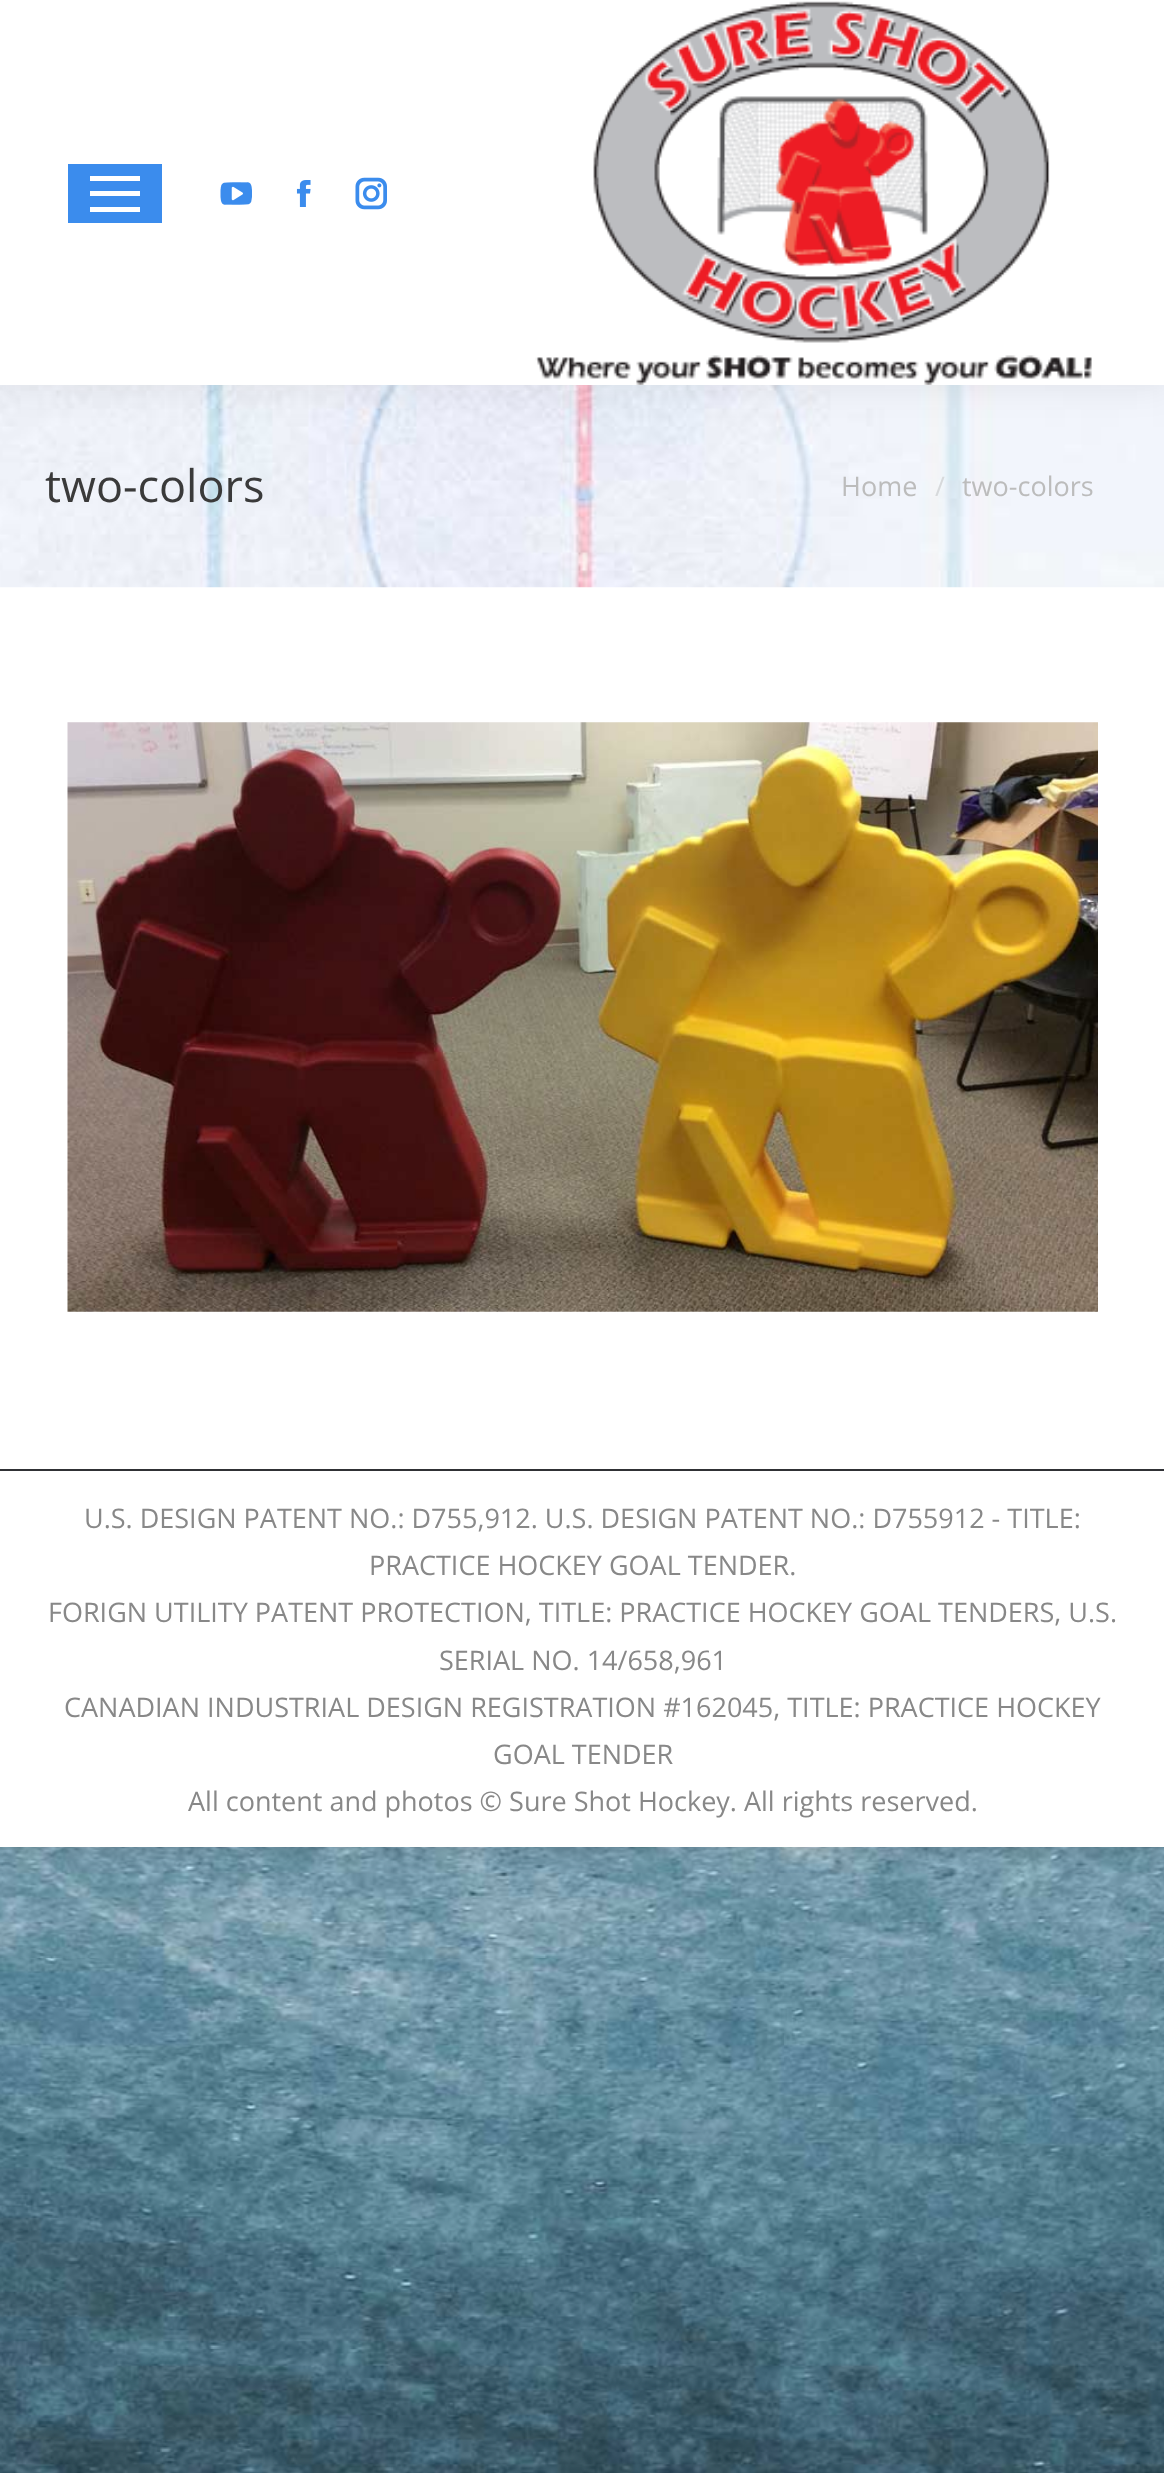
<svg xmlns="http://www.w3.org/2000/svg" width="1164" height="2473" viewBox="0 0 1164 2473">
  <defs>
    <filter id="blur1" x="-50%" y="-200%" width="200%" height="500%"><feGaussianBlur stdDeviation="13.5"/></filter>
    <filter id="blur2" x="-50%" y="-200%" width="200%" height="500%"><feGaussianBlur stdDeviation="17"/></filter>
  </defs>
  <rect width="100%" height="100%" fill="#ffffff"/>
  <image x="0" y="1847" width="1164" height="626" href="img1.png"/>
  <rect x="0" y="0" width="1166" height="1847" fill="#000000" fill-opacity="0.15" filter="url(#blur1)"/>
  <rect x="0" y="587" width="1164" height="1260" fill="#ffffff"/>
  <image x="0" y="385" width="1164" height="203" href="img6.png"/>
  <rect x="-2" y="-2" width="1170" height="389" fill="#000000" fill-opacity="0.07" filter="url(#blur2)"/>
  <rect x="0" y="0" width="1164" height="385" fill="#ffffff"/>
  <rect x="68" y="164" width="94" height="59" fill="#3b8ced"/>
  <rect x="90" y="176" width="50" height="5" fill="#ffffff"/>
  <rect x="90" y="191" width="50" height="5" fill="#ffffff"/>
  <rect x="90" y="207" width="50" height="5" fill="#ffffff"/>
  <image x="220" y="182" width="32" height="23" href="img2.png"/>
  <image x="296" y="180" width="15" height="27" href="img3.png"/>
  <image x="355" y="177" width="32" height="33" href="img4.png"/>
  <image x="535" y="1" width="557" height="384" href="img5.png"/>
  <text x="45" y="502" font-family="Open Sans" font-size="45" fill="#3a3a3a">two-colors</text>
  <text x="841" y="496" font-family="Open Sans" font-size="27" fill="#bcbcbc">Home</text>
  <text x="935" y="496" font-family="Open Sans" font-size="27" fill="#d7d9db">/</text>
  <text x="962" y="496" font-family="Open Sans" font-size="27" fill="#bcbcbc">two-colors</text>
  <image x="67" y="722" width="1031" height="590" href="img7.png"/>
  <rect x="0" y="1469" width="1164" height="2" fill="#303135"/>
  <text x="84" y="1528" font-family="Open Sans" font-size="27" fill="#888888">U.S. DESIGN PATENT NO.: D755,912. U.S. DESIGN PATENT NO.: D755912 - TITLE:</text>
  <text x="369" y="1575" font-family="Open Sans" font-size="27" fill="#888888">PRACTICE HOCKEY GOAL TENDER.</text>
  <text x="48" y="1622" font-family="Open Sans" font-size="27" fill="#888888">FORIGN UTILITY PATENT PROTECTION, TITLE: PRACTICE HOCKEY GOAL TENDERS, U.S.</text>
  <text x="439" y="1670" font-family="Open Sans" font-size="27" fill="#888888">SERIAL NO. 14/658,961</text>
  <text x="64" y="1717" font-family="Open Sans" font-size="27" fill="#888888">CANADIAN INDUSTRIAL DESIGN REGISTRATION #162045, TITLE: PRACTICE HOCKEY</text>
  <text x="493" y="1764" font-family="Open Sans" font-size="27" fill="#888888">GOAL TENDER</text>
  <text x="188" y="1811" font-family="Open Sans" font-size="27" fill="#888888">All content and photos © Sure Shot Hockey. All rights reserved.</text>
</svg>
